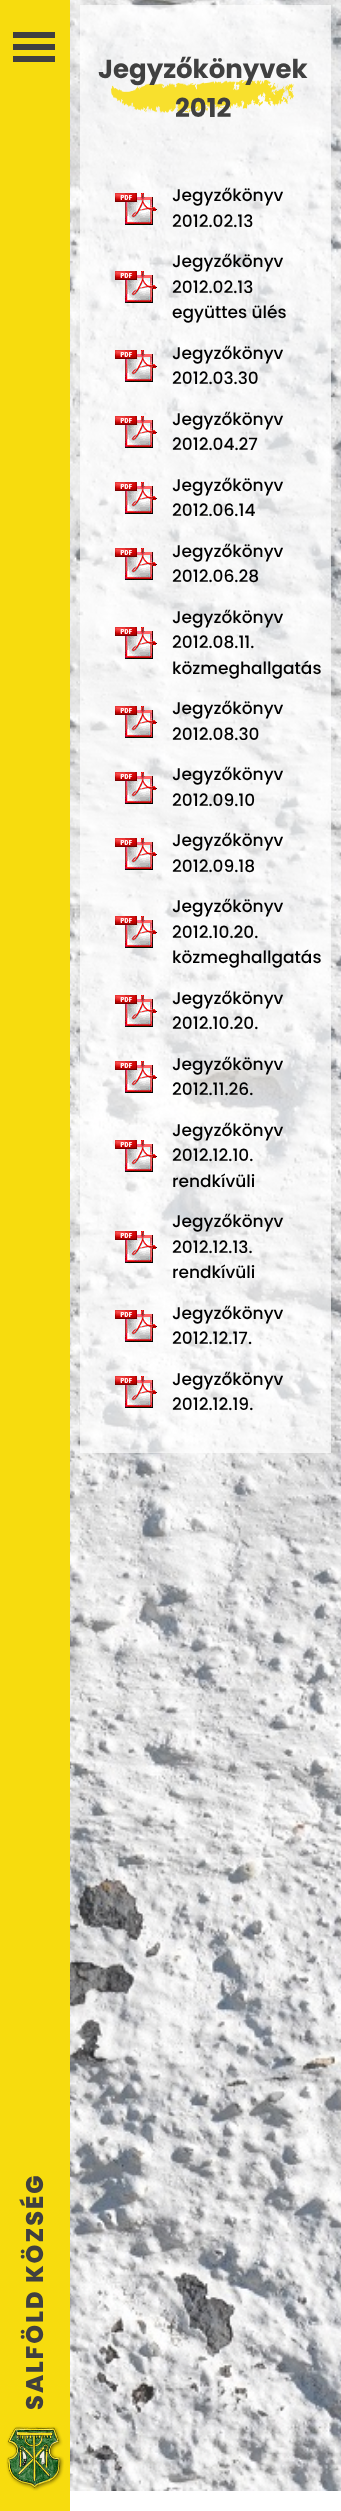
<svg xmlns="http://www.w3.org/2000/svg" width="341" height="2511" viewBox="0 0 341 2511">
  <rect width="100%" height="100%" fill="#ffffff"/>
  <image x="70" y="0" width="271" height="2491" href="img1.png"/>
  <rect x="80" y="5" width="251" height="1448" fill="#ffffff" fill-opacity="0.7"/>
  <image x="111" y="80" width="183" height="33" href="img2.png"/>
  <text x="98" y="78" font-family="Poppins" font-size="26" font-weight="bold" fill="#404040">Jegyzőkönyvek</text>
  <text x="175" y="117" font-family="Poppins" font-size="26" font-weight="bold" fill="#404040">2012</text>
  <image x="115" y="193" width="42" height="32" href="img3.png"/>
  <text x="172" y="201" font-family="Poppins" font-size="17" font-weight="500" fill="#000000">Jegyzőkönyv</text>
  <text x="172" y="227" font-family="Poppins" font-size="17" font-weight="500" fill="#000000">2012.02.13</text>
  <text x="172" y="267" font-family="Poppins" font-size="17" font-weight="500" fill="#000000">Jegyzőkönyv</text>
  <image x="115" y="271" width="42" height="32" href="img4.png"/>
  <text x="172" y="293" font-family="Poppins" font-size="17" font-weight="500" fill="#000000">2012.02.13</text>
  <text x="172" y="318" font-family="Poppins" font-size="17" font-weight="500" fill="#000000">együttes ülés</text>
  <image x="115" y="350" width="42" height="32" href="img5.png"/>
  <text x="172" y="359" font-family="Poppins" font-size="17" font-weight="500" fill="#000000">Jegyzőkönyv</text>
  <text x="172" y="384" font-family="Poppins" font-size="17" font-weight="500" fill="#000000">2012.03.30</text>
  <image x="115" y="416" width="42" height="32" href="img6.png"/>
  <text x="172" y="425" font-family="Poppins" font-size="17" font-weight="500" fill="#000000">Jegyzőkönyv</text>
  <text x="172" y="450" font-family="Poppins" font-size="17" font-weight="500" fill="#000000">2012.04.27</text>
  <image x="115" y="482" width="42" height="32" href="img7.png"/>
  <text x="172" y="491" font-family="Poppins" font-size="17" font-weight="500" fill="#000000">Jegyzőkönyv</text>
  <text x="172" y="516" font-family="Poppins" font-size="17" font-weight="500" fill="#000000">2012.06.14</text>
  <image x="115" y="548" width="42" height="32" href="img8.png"/>
  <text x="172" y="557" font-family="Poppins" font-size="17" font-weight="500" fill="#000000">Jegyzőkönyv</text>
  <text x="172" y="582" font-family="Poppins" font-size="17" font-weight="500" fill="#000000">2012.06.28</text>
  <text x="172" y="623" font-family="Poppins" font-size="17" font-weight="500" fill="#000000">Jegyzőkönyv</text>
  <image x="115" y="627" width="42" height="32" href="img9.png"/>
  <text x="172" y="648" font-family="Poppins" font-size="17" font-weight="500" fill="#000000">2012.08.11.</text>
  <text x="172" y="674" font-family="Poppins" font-size="17" font-weight="500" fill="#000000">közmeghallgatás</text>
  <image x="115" y="706" width="42" height="32" href="img10.png"/>
  <text x="172" y="714" font-family="Poppins" font-size="17" font-weight="500" fill="#000000">Jegyzőkönyv</text>
  <text x="172" y="740" font-family="Poppins" font-size="17" font-weight="500" fill="#000000">2012.08.30</text>
  <image x="115" y="772" width="42" height="32" href="img11.png"/>
  <text x="172" y="780" font-family="Poppins" font-size="17" font-weight="500" fill="#000000">Jegyzőkönyv</text>
  <text x="172" y="806" font-family="Poppins" font-size="17" font-weight="500" fill="#000000">2012.09.10</text>
  <image x="115" y="838" width="42" height="32" href="img12.png"/>
  <text x="172" y="846" font-family="Poppins" font-size="17" font-weight="500" fill="#000000">Jegyzőkönyv</text>
  <text x="172" y="872" font-family="Poppins" font-size="17" font-weight="500" fill="#000000">2012.09.18</text>
  <text x="172" y="912" font-family="Poppins" font-size="17" font-weight="500" fill="#000000">Jegyzőkönyv</text>
  <image x="115" y="916" width="42" height="32" href="img13.png"/>
  <text x="172" y="938" font-family="Poppins" font-size="17" font-weight="500" fill="#000000">2012.10.20.</text>
  <text x="172" y="963" font-family="Poppins" font-size="17" font-weight="500" fill="#000000">közmeghallgatás</text>
  <image x="115" y="995" width="42" height="32" href="img14.png"/>
  <text x="172" y="1004" font-family="Poppins" font-size="17" font-weight="500" fill="#000000">Jegyzőkönyv</text>
  <text x="172" y="1029" font-family="Poppins" font-size="17" font-weight="500" fill="#000000">2012.10.20.</text>
  <image x="115" y="1061" width="42" height="32" href="img15.png"/>
  <text x="172" y="1070" font-family="Poppins" font-size="17" font-weight="500" fill="#000000">Jegyzőkönyv</text>
  <text x="172" y="1095" font-family="Poppins" font-size="17" font-weight="500" fill="#000000">2012.11.26.</text>
  <text x="172" y="1136" font-family="Poppins" font-size="17" font-weight="500" fill="#000000">Jegyzőkönyv</text>
  <image x="115" y="1140" width="42" height="32" href="img16.png"/>
  <text x="172" y="1161" font-family="Poppins" font-size="17" font-weight="500" fill="#000000">2012.12.10.</text>
  <text x="172" y="1187" font-family="Poppins" font-size="17" font-weight="500" fill="#000000">rendkívüli</text>
  <text x="172" y="1227" font-family="Poppins" font-size="17" font-weight="500" fill="#000000">Jegyzőkönyv</text>
  <image x="115" y="1231" width="42" height="32" href="img17.png"/>
  <text x="172" y="1253" font-family="Poppins" font-size="17" font-weight="500" fill="#000000">2012.12.13.</text>
  <text x="172" y="1278" font-family="Poppins" font-size="17" font-weight="500" fill="#000000">rendkívüli</text>
  <image x="115" y="1310" width="42" height="32" href="img18.png"/>
  <text x="172" y="1319" font-family="Poppins" font-size="17" font-weight="500" fill="#000000">Jegyzőkönyv</text>
  <text x="172" y="1344" font-family="Poppins" font-size="17" font-weight="500" fill="#000000">2012.12.17.</text>
  <image x="115" y="1376" width="42" height="32" href="img19.png"/>
  <text x="172" y="1385" font-family="Poppins" font-size="17" font-weight="500" fill="#000000">Jegyzőkönyv</text>
  <text x="172" y="1410" font-family="Poppins" font-size="17" font-weight="500" fill="#000000">2012.12.19.</text>
  <rect x="0" y="0" width="70" height="2511" fill="#f7dc0e"/>
  <rect x="13" y="44" width="42" height="6" fill="#404040"/>
  <rect x="13" y="32" width="42" height="6" fill="#404040"/>
  <rect x="13" y="56" width="42" height="6" fill="#404040"/>
  <text x="43" y="2410" transform="rotate(-90 43 2410)" font-family="Poppins" font-size="24" font-weight="800" letter-spacing="2" fill="#404040">SALFÖLD KÖZSÉG</text>
  <image x="6" y="2426" width="58" height="65" href="img20.png"/>
</svg>
